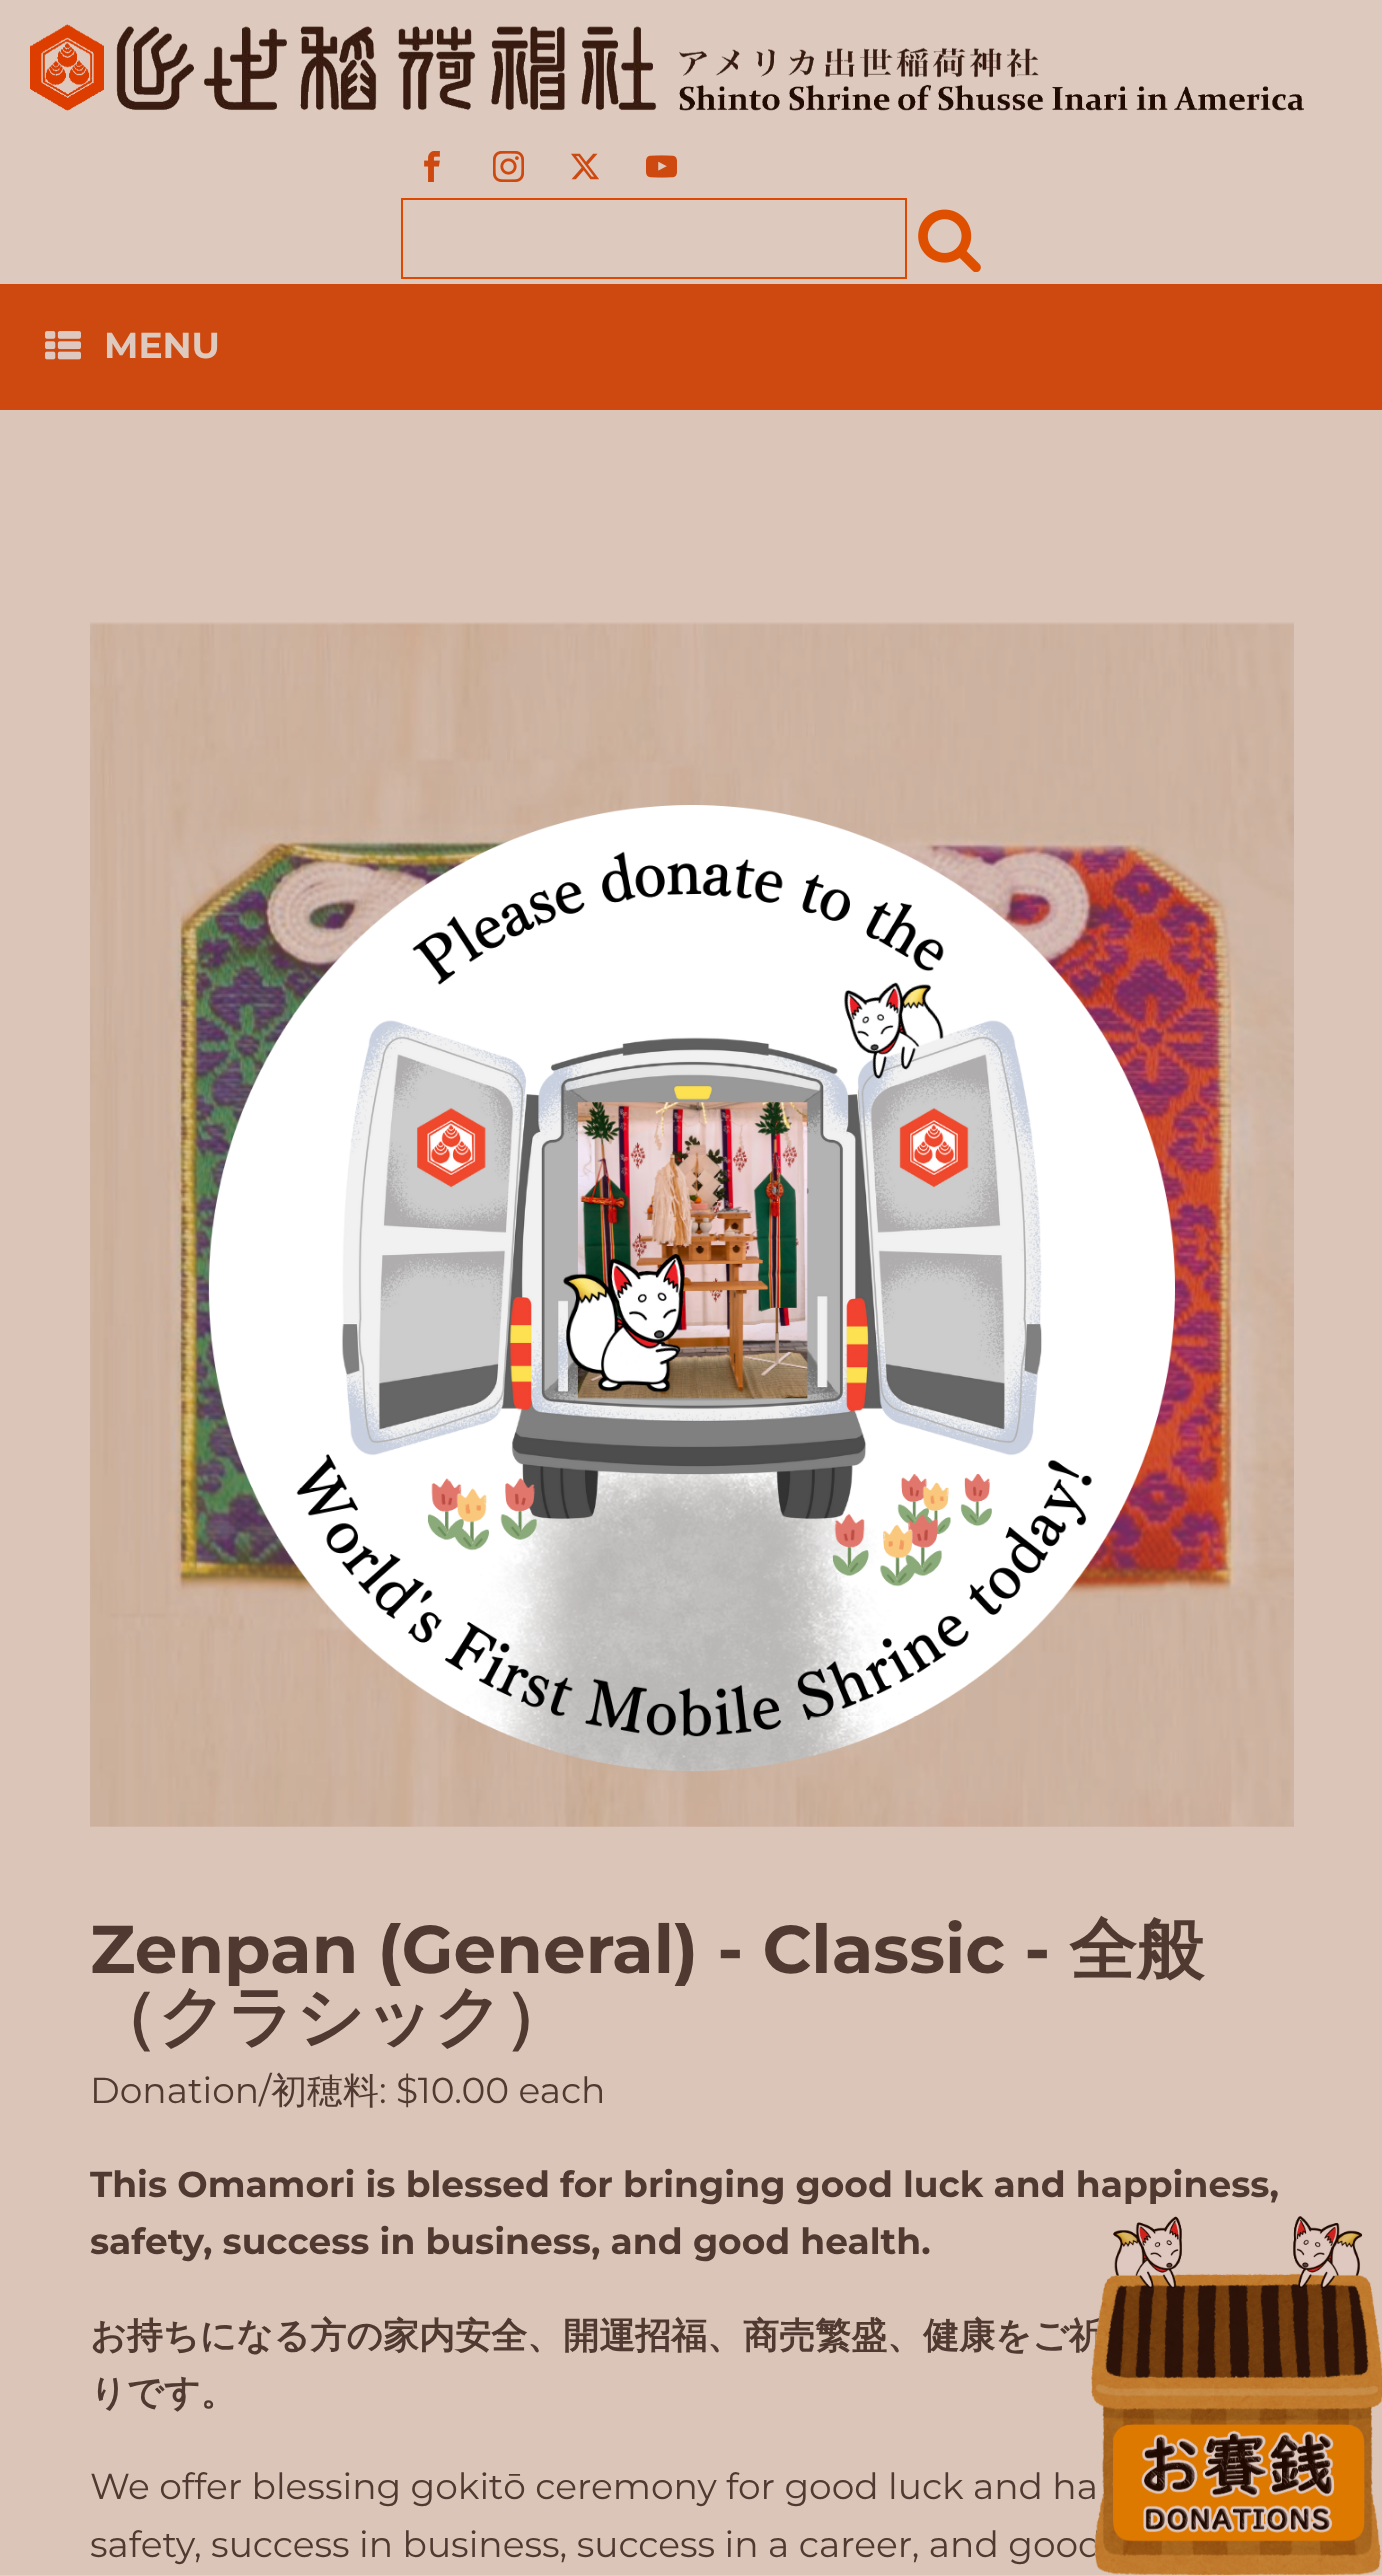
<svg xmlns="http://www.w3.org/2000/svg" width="1382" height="2575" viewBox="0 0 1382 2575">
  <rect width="100%" height="100%" fill="#dbc4b8"/>
  <rect x="0" y="0" width="1382" height="284" fill="#dec9bf"/>
  <image x="30" y="24" width="1274" height="87" href="img1.png"/>
  <image x="424" y="151" width="16" height="31" href="img2.png"/>
  <image x="493" y="151" width="31" height="31" href="img3.png"/>
  <image x="571" y="153" width="29" height="27" href="img4.png"/>
  <image x="646" y="155" width="31" height="23" href="img5.png"/>
  <rect x="402" y="199" width="504" height="79" fill="none" stroke="#de4800" stroke-width="2"/>
  <image x="918" y="209" width="63" height="63" href="img6.png"/>
  <rect x="0" y="284" width="1382" height="126" fill="#ce490f"/>
  <image x="45" y="331" width="36" height="29" href="img7.png"/>
  <text x="104" y="358" font-family="Montserrat" font-size="36" font-weight="bold" fill="#dec9bf">MENU</text>
  <image x="90" y="622" width="1204" height="1205" href="img9.png"/>
  <image x="208" y="805" width="967" height="967" href="img8.png"/>
  <text x="90" y="1973" font-family="Montserrat" font-size="67.5" font-weight="bold" fill="#4f3930">Zenpan (General) - Classic -</text>
  <text x="1069" y="1973" font-family="WenQuanYi Zen Hei" font-size="67.5" font-weight="bold" fill="#4f3930">全般</text>
  <text x="90" y="2040" font-family="WenQuanYi Zen Hei" font-size="67.5" font-weight="bold" fill="#4f3930">（クラシック）</text>
  <text x="90" y="2103" font-family="Montserrat" font-size="36" fill="#4f3930">Donation/</text>
  <text x="271" y="2103" font-family="WenQuanYi Zen Hei" font-size="36" font-weight="500" fill="#4f3930">初穂料</text>
  <text x="379" y="2103" font-family="Montserrat" font-size="36" fill="#4f3930">: $10.00 each</text>
  <text x="90" y="2197" font-family="Montserrat" font-size="36" font-weight="bold" fill="#4f3930">This Omamori is blessed for bringing good luck and happiness,</text>
  <text x="90" y="2254" font-family="Montserrat" font-size="36" font-weight="bold" fill="#4f3930">safety, success in business, and good health.</text>
  <text x="90" y="2348" font-family="WenQuanYi Zen Hei" font-size="36" font-weight="bold" fill="#4f3930">お持ちになる方の家内安全、開運招福、商売繁盛、健康をご祈</text>
  <text x="90" y="2405" font-family="WenQuanYi Zen Hei" font-size="36" font-weight="bold" fill="#4f3930">りです。</text>
  <text x="90" y="2499" font-family="Montserrat" font-size="36" fill="#4f3930">We offer blessing gokitō ceremony for good luck and ha</text>
  <text x="90" y="2557" font-family="Montserrat" font-size="36" fill="#4f3930">safety, success in business, success in a career, and good</text>
  <image x="1091" y="2216" width="291" height="359" href="img10.png"/>
</svg>
